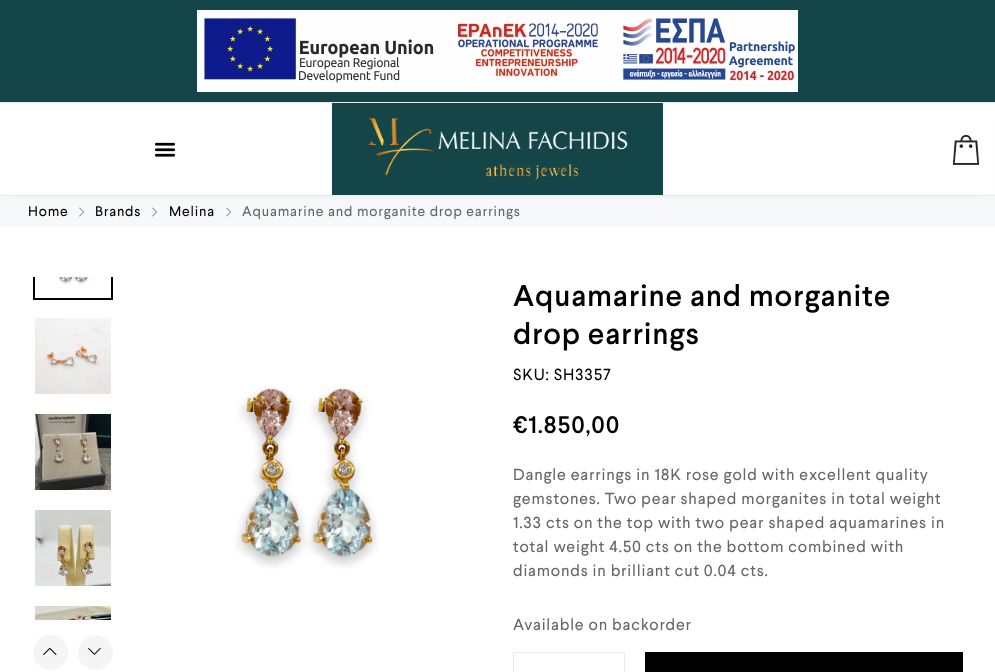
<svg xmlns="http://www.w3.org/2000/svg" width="995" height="672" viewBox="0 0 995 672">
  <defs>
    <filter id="blur1" x="-50%" y="-200%" width="200%" height="500%"><feGaussianBlur stdDeviation="5"/></filter>
    <clipPath id="clip1"><rect x="33" y="277" width="80" height="343"/></clipPath>
  </defs>
  <rect width="100%" height="100%" fill="#ffffff"/>
  <rect x="0" y="0" width="995" height="102" fill="#134549"/>
  <rect x="0" y="102" width="995" height="1" fill="#ebebeb"/>
  <image x="197" y="10" width="601" height="82" href="img1.png"/>
  <rect x="0" y="196" width="995" height="31" fill="#f6f8fa"/>
  <rect x="10" y="118" width="975" height="73" fill="#000000" fill-opacity="0.2" filter="url(#blur1)"/>
  <rect x="2" y="110" width="991" height="85" fill="#ffffff"/>
  <rect x="0" y="195" width="995" height="1" fill="#ebebeb"/>
  <image x="154" y="142" width="22" height="15" href="img2.png"/>
  <rect x="332" y="103" width="331" height="92" fill="#134549"/>
  <image x="367" y="117" width="261" height="64" href="img3.png"/>
  <image x="952" y="134" width="28" height="31" href="img4.png"/>
  <text x="28" y="216" font-family="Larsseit" font-size="14" letter-spacing="0.8" fill="#000000">Home</text>
  <image x="79" y="207" width="5" height="10" href="img5.png"/>
  <text x="95" y="216" font-family="Larsseit" font-size="14" letter-spacing="0.8" fill="#000000">Brands</text>
  <image x="152" y="207" width="5" height="10" href="img5.png"/>
  <text x="169" y="216" font-family="Larsseit" font-size="14" letter-spacing="0.8" fill="#000000">Melina</text>
  <image x="226" y="207" width="5" height="10" href="img5.png"/>
  <text x="242" y="216" font-family="Larsseit" font-size="14" letter-spacing="0.8" fill="#666666">Aquamarine and morganite drop earrings</text>
  <g clip-path="url(#clip1)">
    <rect x="34" y="221" width="78" height="78" fill="none" stroke="#000000" stroke-width="2"/>
  </g>
  <image x="58" y="277" width="31" height="8" href="img6.png"/>
  <image x="35" y="318" width="76" height="76" href="img7.png"/>
  <image x="35" y="414" width="76" height="76" href="img8.png"/>
  <image x="35" y="510" width="76" height="76" href="img9.png"/>
  <image x="35" y="606" width="76" height="14" href="img10.png"/>
  <circle cx="50.5" cy="652.5" r="17.5" fill="#f5f5f5"/>
  <image x="43" y="647" width="14" height="9" href="img11.png"/>
  <circle cx="95.5" cy="652.5" r="17.5" fill="#f5f5f5"/>
  <image x="88" y="648" width="13" height="7" href="img12.png"/>
  <image x="235" y="387" width="144" height="182" href="img13.png"/>
  <text x="513" y="306" font-family="Larsseit" font-size="30" font-weight="500" letter-spacing="0.8" fill="#000000">Aquamarine and morganite</text>
  <text x="513" y="344" font-family="Larsseit" font-size="30" font-weight="500" letter-spacing="0.8" fill="#000000">drop earrings</text>
  <text x="513" y="380" font-family="Larsseit" font-size="16" letter-spacing="0.8" fill="#000000">SKU: SH3357</text>
  <text x="513" y="433" font-family="Larsseit" font-size="24" font-weight="500" letter-spacing="0.8" fill="#000000">€1.850,00</text>
  <text x="513" y="480" font-family="Larsseit" font-size="16" letter-spacing="0.8" fill="#666666">Dangle earrings in 18K rose gold with excellent quality</text>
  <text x="513" y="504" font-family="Larsseit" font-size="16" letter-spacing="0.8" fill="#666666">gemstones. Two pear shaped morganites in total weight</text>
  <text x="513" y="528" font-family="Larsseit" font-size="16" letter-spacing="0.8" fill="#666666">1.33 cts on the top with two pear shaped aquamarines in</text>
  <text x="513" y="552" font-family="Larsseit" font-size="16" letter-spacing="0.8" fill="#666666">total weight 4.50 cts on the bottom combined with</text>
  <text x="513" y="576" font-family="Larsseit" font-size="16" letter-spacing="0.8" fill="#666666">diamonds in brilliant cut 0.04 cts.</text>
  <text x="513" y="630" font-family="Larsseit" font-size="16" letter-spacing="0.8" fill="#666666">Available on backorder</text>
  <rect x="513.5" y="652.5" width="111" height="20" fill="none" stroke="#ebebeb"/>
  <rect x="645" y="652" width="318" height="20" fill="#000000"/>
</svg>
